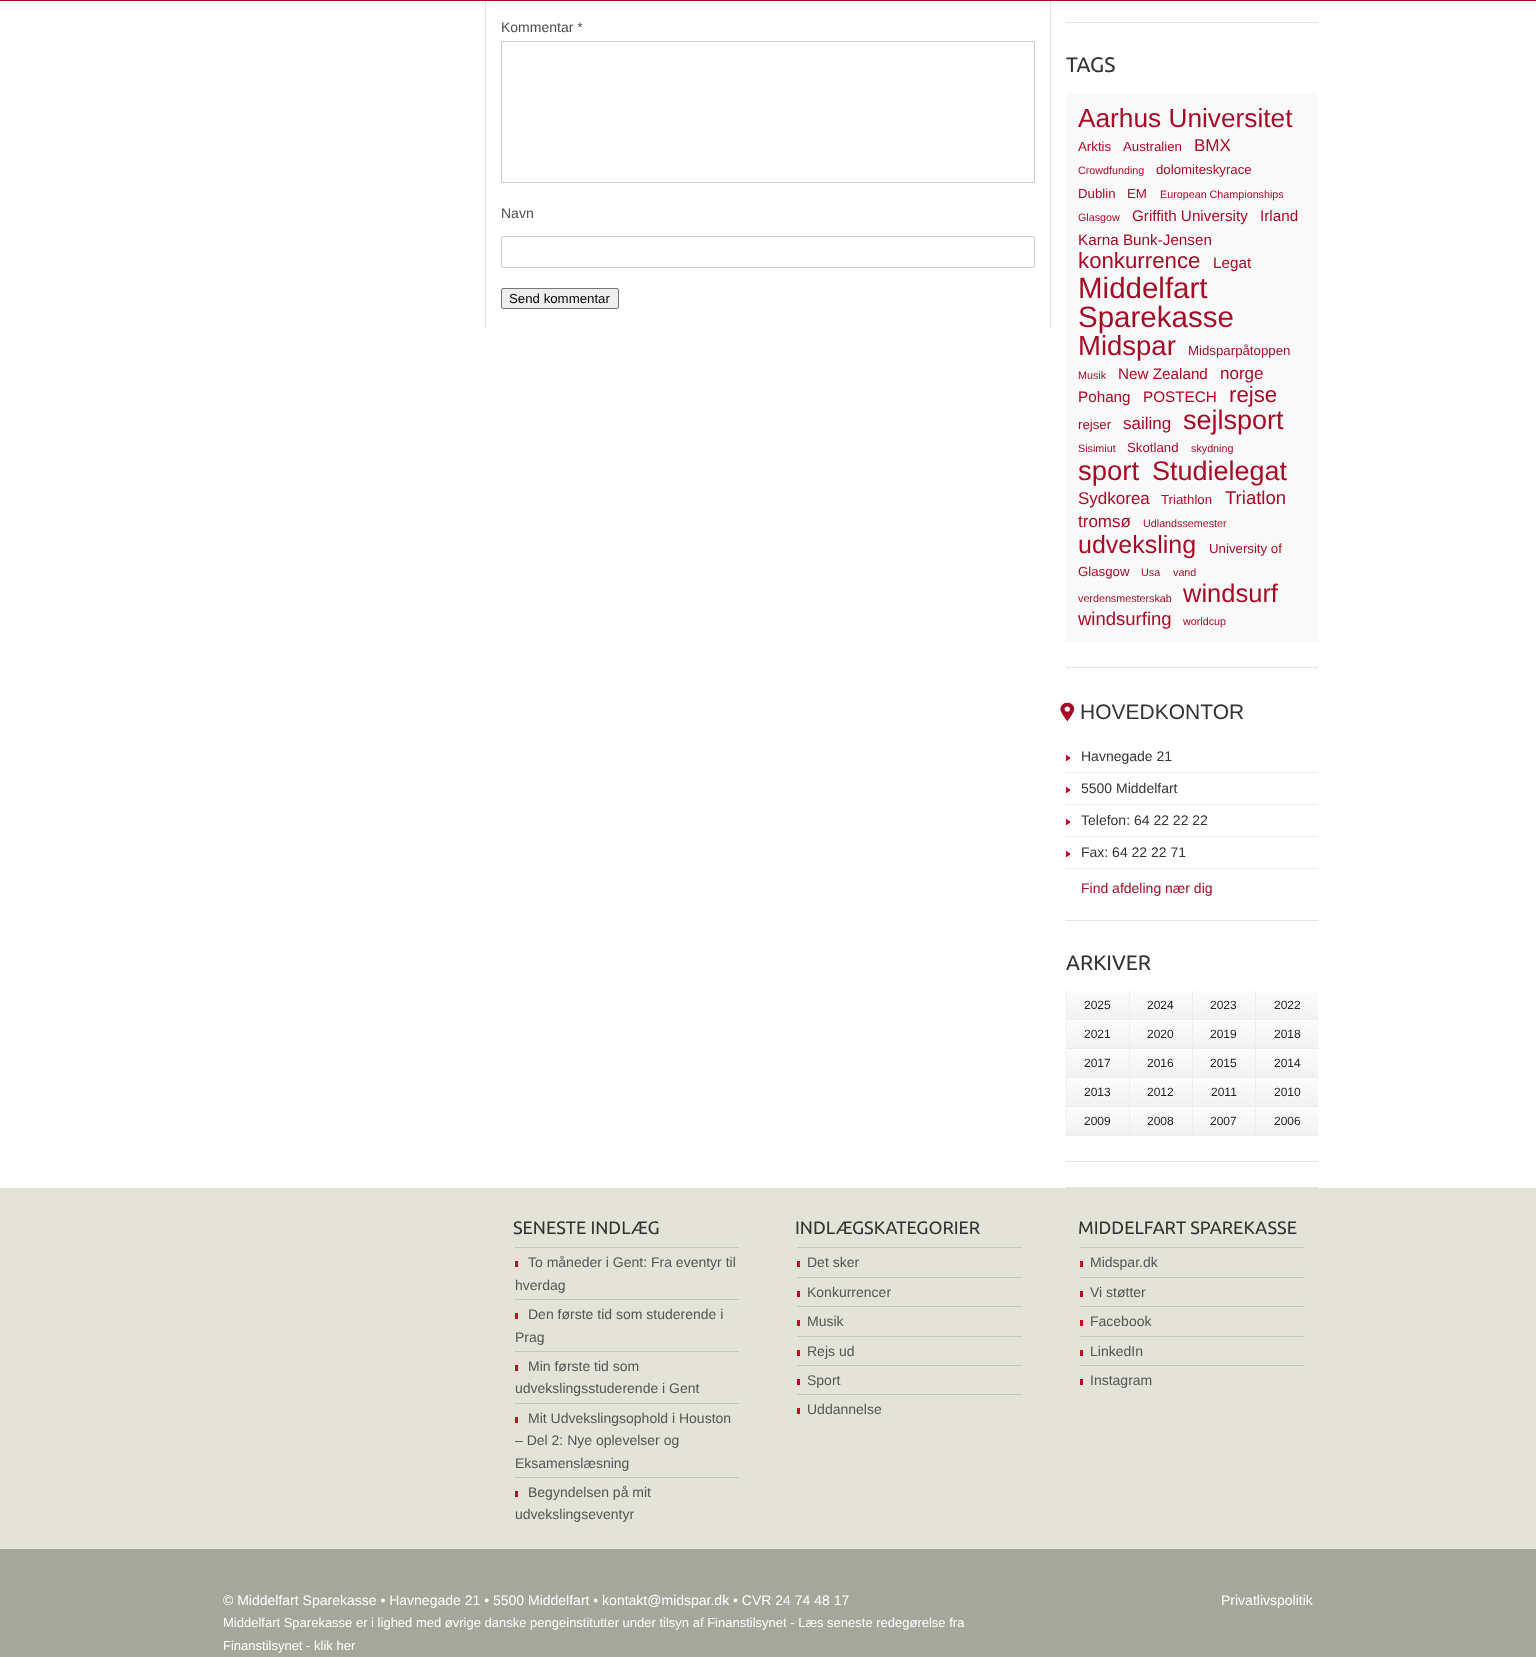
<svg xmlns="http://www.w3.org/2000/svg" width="1536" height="1657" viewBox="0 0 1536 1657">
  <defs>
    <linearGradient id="g1" gradientUnits="userSpaceOnUse" x1="1098" y1="991" x2="1098" y2="1019"><stop offset="0" stop-color="#fcfcfc"/><stop offset="1" stop-color="#f2f2f2"/></linearGradient>
    <linearGradient id="g2" gradientUnits="userSpaceOnUse" x1="1161" y1="991" x2="1161" y2="1019"><stop offset="0" stop-color="#fcfcfc"/><stop offset="1" stop-color="#f2f2f2"/></linearGradient>
    <linearGradient id="g3" gradientUnits="userSpaceOnUse" x1="1224" y1="991" x2="1224" y2="1019"><stop offset="0" stop-color="#fcfcfc"/><stop offset="1" stop-color="#f2f2f2"/></linearGradient>
    <linearGradient id="g4" gradientUnits="userSpaceOnUse" x1="1287" y1="991" x2="1287" y2="1019"><stop offset="0" stop-color="#fcfcfc"/><stop offset="1" stop-color="#f2f2f2"/></linearGradient>
    <linearGradient id="g5" gradientUnits="userSpaceOnUse" x1="1098" y1="1020" x2="1098" y2="1048"><stop offset="0" stop-color="#fcfcfc"/><stop offset="1" stop-color="#f2f2f2"/></linearGradient>
    <linearGradient id="g6" gradientUnits="userSpaceOnUse" x1="1161" y1="1020" x2="1161" y2="1048"><stop offset="0" stop-color="#fcfcfc"/><stop offset="1" stop-color="#f2f2f2"/></linearGradient>
    <linearGradient id="g7" gradientUnits="userSpaceOnUse" x1="1224" y1="1020" x2="1224" y2="1048"><stop offset="0" stop-color="#fcfcfc"/><stop offset="1" stop-color="#f2f2f2"/></linearGradient>
    <linearGradient id="g8" gradientUnits="userSpaceOnUse" x1="1287" y1="1020" x2="1287" y2="1048"><stop offset="0" stop-color="#fcfcfc"/><stop offset="1" stop-color="#f2f2f2"/></linearGradient>
    <linearGradient id="g9" gradientUnits="userSpaceOnUse" x1="1098" y1="1049" x2="1098" y2="1077"><stop offset="0" stop-color="#fcfcfc"/><stop offset="1" stop-color="#f2f2f2"/></linearGradient>
    <linearGradient id="g10" gradientUnits="userSpaceOnUse" x1="1161" y1="1049" x2="1161" y2="1077"><stop offset="0" stop-color="#fcfcfc"/><stop offset="1" stop-color="#f2f2f2"/></linearGradient>
    <linearGradient id="g11" gradientUnits="userSpaceOnUse" x1="1224" y1="1049" x2="1224" y2="1077"><stop offset="0" stop-color="#fcfcfc"/><stop offset="1" stop-color="#f2f2f2"/></linearGradient>
    <linearGradient id="g12" gradientUnits="userSpaceOnUse" x1="1287" y1="1049" x2="1287" y2="1077"><stop offset="0" stop-color="#fcfcfc"/><stop offset="1" stop-color="#f2f2f2"/></linearGradient>
    <linearGradient id="g13" gradientUnits="userSpaceOnUse" x1="1098" y1="1078" x2="1098" y2="1106"><stop offset="0" stop-color="#fcfcfc"/><stop offset="1" stop-color="#f2f2f2"/></linearGradient>
    <linearGradient id="g14" gradientUnits="userSpaceOnUse" x1="1161" y1="1078" x2="1161" y2="1106"><stop offset="0" stop-color="#fcfcfc"/><stop offset="1" stop-color="#f2f2f2"/></linearGradient>
    <linearGradient id="g15" gradientUnits="userSpaceOnUse" x1="1224" y1="1078" x2="1224" y2="1106"><stop offset="0" stop-color="#fcfcfc"/><stop offset="1" stop-color="#f2f2f2"/></linearGradient>
    <linearGradient id="g16" gradientUnits="userSpaceOnUse" x1="1287" y1="1078" x2="1287" y2="1106"><stop offset="0" stop-color="#fcfcfc"/><stop offset="1" stop-color="#f2f2f2"/></linearGradient>
    <linearGradient id="g17" gradientUnits="userSpaceOnUse" x1="1098" y1="1107" x2="1098" y2="1135"><stop offset="0" stop-color="#fcfcfc"/><stop offset="1" stop-color="#f2f2f2"/></linearGradient>
    <linearGradient id="g18" gradientUnits="userSpaceOnUse" x1="1161" y1="1107" x2="1161" y2="1135"><stop offset="0" stop-color="#fcfcfc"/><stop offset="1" stop-color="#f2f2f2"/></linearGradient>
    <linearGradient id="g19" gradientUnits="userSpaceOnUse" x1="1224" y1="1107" x2="1224" y2="1135"><stop offset="0" stop-color="#fcfcfc"/><stop offset="1" stop-color="#f2f2f2"/></linearGradient>
    <linearGradient id="g20" gradientUnits="userSpaceOnUse" x1="1287" y1="1107" x2="1287" y2="1135"><stop offset="0" stop-color="#fcfcfc"/><stop offset="1" stop-color="#f2f2f2"/></linearGradient>
  </defs>
  <rect width="100%" height="100%" fill="#ffffff"/>
  <rect x="1050" y="0" width="1" height="329" fill="#e5e5e5"/>
  <rect x="485" y="0" width="1" height="329" fill="#e5e5e5"/>
  <rect x="0" y="0" width="1536" height="1" fill="#a70a25"/>
  <text x="501" y="32" font-family="Liberation Sans" font-size="14" fill="#4d4d4d">Kommentar *</text>
  <rect x="501.5" y="41.5" width="533" height="141" rx="1.5" fill="none" stroke="#cccccc"/>
  <text x="501" y="218" font-family="Liberation Sans" font-size="14" fill="#4d4d4d">Navn</text>
  <rect x="501.5" y="236.5" width="533" height="31" rx="1.5" fill="none" stroke="#cccccc"/>
  <rect x="501.5" y="288.5" width="117" height="20" rx="1.5" fill="#efefef" stroke="#767676"/>
  <text x="509" y="303" font-family="Liberation Sans" font-size="13.25" fill="#000000">Send kommentar</text>
  <rect x="1066" y="1187" width="252" height="1" fill="#e5e5e5"/>
  <rect x="1066" y="22" width="252" height="1" fill="#e5e5e5"/>
  <rect x="1066" y="667" width="252" height="1" fill="#e5e5e5"/>
  <text x="1066" y="72" font-family="Ubuntu" font-size="21" fill="#333333">TAGS</text>
  <rect x="1066" y="93" width="252" height="549" fill="#f9f9f9"/>
  <text x="1078" y="127" font-family="Liberation Sans" font-size="26.25" fill="#a70a25">Aarhus Universitet</text>
  <text x="1078" y="151" font-family="Liberation Sans" font-size="13.25" fill="#a70a25">Arktis</text>
  <text x="1123" y="151" font-family="Liberation Sans" font-size="13.25" fill="#a70a25">Australien</text>
  <text x="1194" y="151" font-family="Liberation Sans" font-size="17" fill="#a70a25">BMX</text>
  <text x="1078" y="174" font-family="Liberation Sans" font-size="10.75" fill="#a70a25">Crowdfunding</text>
  <text x="1156" y="174" font-family="Liberation Sans" font-size="13.25" fill="#a70a25">dolomiteskyrace</text>
  <text x="1078" y="198" font-family="Liberation Sans" font-size="13.25" fill="#a70a25">Dublin</text>
  <text x="1127" y="198" font-family="Liberation Sans" font-size="13.25" fill="#a70a25">EM</text>
  <text x="1160" y="198" font-family="Liberation Sans" font-size="10.75" fill="#a70a25">European Championships</text>
  <text x="1078" y="221" font-family="Liberation Sans" font-size="10.75" fill="#a70a25">Glasgow</text>
  <text x="1132" y="221" font-family="Liberation Sans" font-size="15.25" fill="#a70a25">Griffith University</text>
  <text x="1260" y="221" font-family="Liberation Sans" font-size="15.25" fill="#a70a25">Irland</text>
  <text x="1078" y="245" font-family="Liberation Sans" font-size="15.25" fill="#a70a25">Karna Bunk-Jensen</text>
  <text x="1078" y="268" font-family="Liberation Sans" font-size="22.25" fill="#a70a25">konkurrence</text>
  <text x="1213" y="268" font-family="Liberation Sans" font-size="15.25" fill="#a70a25">Legat</text>
  <text x="1078" y="298" font-family="Liberation Sans" font-size="29.5" fill="#a70a25">Middelfart</text>
  <text x="1078" y="327" font-family="Liberation Sans" font-size="29.5" fill="#a70a25">Sparekasse</text>
  <text x="1078" y="355" font-family="Liberation Sans" font-size="27.5" fill="#a70a25">Midspar</text>
  <text x="1188" y="355" font-family="Liberation Sans" font-size="13.25" fill="#a70a25">Midsparpåtoppen</text>
  <text x="1078" y="379" font-family="Liberation Sans" font-size="10.75" fill="#a70a25">Musik</text>
  <text x="1118" y="379" font-family="Liberation Sans" font-size="15.25" fill="#a70a25">New Zealand</text>
  <text x="1220" y="379" font-family="Liberation Sans" font-size="17" fill="#a70a25">norge</text>
  <text x="1078" y="402" font-family="Liberation Sans" font-size="15.25" fill="#a70a25">Pohang</text>
  <text x="1143" y="402" font-family="Liberation Sans" font-size="15.25" fill="#a70a25">POSTECH</text>
  <text x="1229" y="402" font-family="Liberation Sans" font-size="22.25" fill="#a70a25">rejse</text>
  <text x="1078" y="429" font-family="Liberation Sans" font-size="13.25" fill="#a70a25">rejser</text>
  <text x="1123" y="429" font-family="Liberation Sans" font-size="17" fill="#a70a25">sailing</text>
  <text x="1183" y="429" font-family="Liberation Sans" font-size="27" fill="#a70a25">sejlsport</text>
  <text x="1078" y="452" font-family="Liberation Sans" font-size="10.75" fill="#a70a25">Sisimiut</text>
  <text x="1127" y="452" font-family="Liberation Sans" font-size="13.25" fill="#a70a25">Skotland</text>
  <text x="1191" y="452" font-family="Liberation Sans" font-size="10.75" fill="#a70a25">skydning</text>
  <text x="1078" y="480" font-family="Liberation Sans" font-size="27.5" fill="#a70a25">sport</text>
  <text x="1152" y="480" font-family="Liberation Sans" font-size="27" fill="#a70a25">Studielegat</text>
  <text x="1078" y="504" font-family="Liberation Sans" font-size="17" fill="#a70a25">Sydkorea</text>
  <text x="1161" y="504" font-family="Liberation Sans" font-size="13.25" fill="#a70a25">Triathlon</text>
  <text x="1225" y="504" font-family="Liberation Sans" font-size="18.5" fill="#a70a25">Triatlon</text>
  <text x="1078" y="527" font-family="Liberation Sans" font-size="17" fill="#a70a25">tromsø</text>
  <text x="1143" y="527" font-family="Liberation Sans" font-size="10.75" fill="#a70a25">Udlandssemester</text>
  <text x="1078" y="553" font-family="Liberation Sans" font-size="25" fill="#a70a25">udveksling</text>
  <text x="1209" y="553" font-family="Liberation Sans" font-size="13.25" fill="#a70a25">University of</text>
  <text x="1078" y="576" font-family="Liberation Sans" font-size="13.25" fill="#a70a25">Glasgow</text>
  <text x="1141" y="576" font-family="Liberation Sans" font-size="10.75" fill="#a70a25">Usa</text>
  <text x="1173" y="576" font-family="Liberation Sans" font-size="10.75" fill="#a70a25">vand</text>
  <text x="1078" y="602" font-family="Liberation Sans" font-size="10.75" fill="#a70a25">verdensmesterskab</text>
  <text x="1183" y="602" font-family="Liberation Sans" font-size="25.5" fill="#a70a25">windsurf</text>
  <text x="1078" y="625" font-family="Liberation Sans" font-size="18.5" fill="#a70a25">windsurfing</text>
  <text x="1183" y="625" font-family="Liberation Sans" font-size="10.75" fill="#a70a25">worldcup</text>
  <rect x="1066" y="920" width="252" height="1" fill="#e5e5e5"/>
  <image x="1055" y="702" width="24" height="22" href="img1.png"/>
  <text x="1080" y="719" font-family="Liberation Sans" font-size="21" fill="#333333">HOVEDKONTOR</text>
  <image x="1066" y="755" width="4" height="6" href="img2.png"/>
  <path d="M1066 772.5H1318" fill="none" stroke="#dddddd" stroke-dasharray="1 1"/>
  <text x="1081" y="761" font-family="Liberation Sans" font-size="14" fill="#333333">Havnegade 21</text>
  <image x="1066" y="787" width="4" height="6" href="img2.png"/>
  <path d="M1066 804.5H1318" fill="none" stroke="#dddddd" stroke-dasharray="1 1"/>
  <text x="1081" y="793" font-family="Liberation Sans" font-size="14" fill="#333333">5500 Middelfart</text>
  <image x="1066" y="819" width="4" height="6" href="img2.png"/>
  <path d="M1066 836.5H1318" fill="none" stroke="#dddddd" stroke-dasharray="1 1"/>
  <text x="1081" y="825" font-family="Liberation Sans" font-size="14" fill="#333333">Telefon: 64 22 22 22</text>
  <image x="1066" y="851" width="4" height="6" href="img2.png"/>
  <path d="M1066 868.5H1318" fill="none" stroke="#dddddd" stroke-dasharray="1 1"/>
  <text x="1081" y="857" font-family="Liberation Sans" font-size="14" fill="#333333">Fax: 64 22 22 71</text>
  <text x="1081" y="893" font-family="Liberation Sans" font-size="14" fill="#a70a25">Find afdeling nær dig</text>
  <rect x="1066" y="1161" width="252" height="1" fill="#e5e5e5"/>
  <text x="1066" y="970" font-family="Ubuntu" font-size="21" fill="#333333">ARKIVER</text>
  <rect x="1067" y="991" width="62" height="28" fill="url(#g1)"/>
  <rect x="1066" y="1019" width="252" height="1" fill="#eeeeee"/>
  <rect x="1066" y="991" width="1" height="29" fill="#eeeeee"/>
  <text x="1084" y="1009" font-family="Liberation Sans" font-size="12" fill="#222222">2025</text>
  <rect x="1130" y="991" width="62" height="28" fill="url(#g2)"/>
  <rect x="1129" y="991" width="1" height="29" fill="#eeeeee"/>
  <text x="1147" y="1009" font-family="Liberation Sans" font-size="12" fill="#222222">2024</text>
  <rect x="1193" y="991" width="62" height="28" fill="url(#g3)"/>
  <rect x="1192" y="991" width="1" height="29" fill="#eeeeee"/>
  <text x="1210" y="1009" font-family="Liberation Sans" font-size="12" fill="#222222">2023</text>
  <rect x="1256" y="991" width="62" height="28" fill="url(#g4)"/>
  <rect x="1255" y="991" width="1" height="29" fill="#eeeeee"/>
  <text x="1274" y="1009" font-family="Liberation Sans" font-size="12" fill="#222222">2022</text>
  <rect x="1067" y="1020" width="62" height="28" fill="url(#g5)"/>
  <rect x="1066" y="1048" width="252" height="1" fill="#eeeeee"/>
  <rect x="1066" y="1020" width="1" height="29" fill="#eeeeee"/>
  <text x="1084" y="1038" font-family="Liberation Sans" font-size="12" fill="#222222">2021</text>
  <rect x="1130" y="1020" width="62" height="28" fill="url(#g6)"/>
  <rect x="1129" y="1020" width="1" height="29" fill="#eeeeee"/>
  <text x="1147" y="1038" font-family="Liberation Sans" font-size="12" fill="#222222">2020</text>
  <rect x="1193" y="1020" width="62" height="28" fill="url(#g7)"/>
  <rect x="1192" y="1020" width="1" height="29" fill="#eeeeee"/>
  <text x="1210" y="1038" font-family="Liberation Sans" font-size="12" fill="#222222">2019</text>
  <rect x="1256" y="1020" width="62" height="28" fill="url(#g8)"/>
  <rect x="1255" y="1020" width="1" height="29" fill="#eeeeee"/>
  <text x="1274" y="1038" font-family="Liberation Sans" font-size="12" fill="#222222">2018</text>
  <rect x="1067" y="1049" width="62" height="28" fill="url(#g9)"/>
  <rect x="1066" y="1077" width="252" height="1" fill="#eeeeee"/>
  <rect x="1066" y="1049" width="1" height="29" fill="#eeeeee"/>
  <text x="1084" y="1067" font-family="Liberation Sans" font-size="12" fill="#222222">2017</text>
  <rect x="1130" y="1049" width="62" height="28" fill="url(#g10)"/>
  <rect x="1129" y="1049" width="1" height="29" fill="#eeeeee"/>
  <text x="1147" y="1067" font-family="Liberation Sans" font-size="12" fill="#222222">2016</text>
  <rect x="1193" y="1049" width="62" height="28" fill="url(#g11)"/>
  <rect x="1192" y="1049" width="1" height="29" fill="#eeeeee"/>
  <text x="1210" y="1067" font-family="Liberation Sans" font-size="12" fill="#222222">2015</text>
  <rect x="1256" y="1049" width="62" height="28" fill="url(#g12)"/>
  <rect x="1255" y="1049" width="1" height="29" fill="#eeeeee"/>
  <text x="1274" y="1067" font-family="Liberation Sans" font-size="12" fill="#222222">2014</text>
  <rect x="1067" y="1078" width="62" height="28" fill="url(#g13)"/>
  <rect x="1066" y="1106" width="252" height="1" fill="#eeeeee"/>
  <rect x="1066" y="1078" width="1" height="29" fill="#eeeeee"/>
  <text x="1084" y="1096" font-family="Liberation Sans" font-size="12" fill="#222222">2013</text>
  <rect x="1130" y="1078" width="62" height="28" fill="url(#g14)"/>
  <rect x="1129" y="1078" width="1" height="29" fill="#eeeeee"/>
  <text x="1147" y="1096" font-family="Liberation Sans" font-size="12" fill="#222222">2012</text>
  <rect x="1193" y="1078" width="62" height="28" fill="url(#g15)"/>
  <rect x="1192" y="1078" width="1" height="29" fill="#eeeeee"/>
  <text x="1211" y="1096" font-family="Liberation Sans" font-size="12" fill="#222222">2011</text>
  <rect x="1256" y="1078" width="62" height="28" fill="url(#g16)"/>
  <rect x="1255" y="1078" width="1" height="29" fill="#eeeeee"/>
  <text x="1274" y="1096" font-family="Liberation Sans" font-size="12" fill="#222222">2010</text>
  <rect x="1067" y="1107" width="62" height="28" fill="url(#g17)"/>
  <rect x="1066" y="1135" width="252" height="1" fill="#eeeeee"/>
  <rect x="1066" y="1107" width="1" height="29" fill="#eeeeee"/>
  <text x="1084" y="1125" font-family="Liberation Sans" font-size="12" fill="#222222">2009</text>
  <rect x="1130" y="1107" width="62" height="28" fill="url(#g18)"/>
  <rect x="1129" y="1107" width="1" height="29" fill="#eeeeee"/>
  <text x="1147" y="1125" font-family="Liberation Sans" font-size="12" fill="#222222">2008</text>
  <rect x="1193" y="1107" width="62" height="28" fill="url(#g19)"/>
  <rect x="1192" y="1107" width="1" height="29" fill="#eeeeee"/>
  <text x="1210" y="1125" font-family="Liberation Sans" font-size="12" fill="#222222">2007</text>
  <rect x="1256" y="1107" width="62" height="28" fill="url(#g20)"/>
  <rect x="1255" y="1107" width="1" height="29" fill="#eeeeee"/>
  <text x="1274" y="1125" font-family="Liberation Sans" font-size="12" fill="#222222">2006</text>
  <rect x="0" y="1188" width="1536" height="361" fill="#e3e3d8"/>
  <text x="513" y="1234" font-family="Ubuntu" font-size="18" fill="#333333">SENESTE INDLÆG</text>
  <rect x="515" y="1247" width="224" height="1" fill="#c6c6c1"/>
  <rect x="515" y="1299" width="224" height="1" fill="#c6c6c1"/>
  <rect x="515" y="1261" width="3" height="6" fill="#c40421"/>
  <text x="528" y="1267" font-family="Liberation Sans" font-size="14" fill="#555555">To måneder i Gent: Fra eventyr til</text>
  <text x="515" y="1290" font-family="Liberation Sans" font-size="14" fill="#555555">hverdag</text>
  <rect x="515" y="1351" width="224" height="1" fill="#c6c6c1"/>
  <rect x="515" y="1313" width="3" height="6" fill="#c40421"/>
  <text x="528" y="1319" font-family="Liberation Sans" font-size="14" fill="#555555">Den første tid som studerende i</text>
  <text x="515" y="1342" font-family="Liberation Sans" font-size="14" fill="#555555">Prag</text>
  <rect x="515" y="1403" width="224" height="1" fill="#c6c6c1"/>
  <rect x="515" y="1365" width="3" height="6" fill="#c40421"/>
  <text x="528" y="1371" font-family="Liberation Sans" font-size="14" fill="#555555">Min første tid som</text>
  <text x="515" y="1393" font-family="Liberation Sans" font-size="14" fill="#555555">udvekslingsstuderende i Gent</text>
  <rect x="515" y="1477" width="224" height="1" fill="#c6c6c1"/>
  <rect x="515" y="1417" width="3" height="6" fill="#c40421"/>
  <text x="528" y="1423" font-family="Liberation Sans" font-size="14" fill="#555555">Mit Udvekslingsophold i Houston</text>
  <text x="515" y="1445" font-family="Liberation Sans" font-size="14" fill="#555555">– Del 2: Nye oplevelser og</text>
  <text x="515" y="1468" font-family="Liberation Sans" font-size="14" fill="#555555">Eksamenslæsning</text>
  <rect x="515" y="1491" width="3" height="6" fill="#c40421"/>
  <text x="528" y="1497" font-family="Liberation Sans" font-size="14" fill="#555555">Begyndelsen på mit</text>
  <text x="515" y="1519" font-family="Liberation Sans" font-size="14" fill="#555555">udvekslingseventyr</text>
  <text x="795" y="1234" font-family="Ubuntu" font-size="18" fill="#333333">INDLÆGSKATEGORIER</text>
  <rect x="797" y="1247" width="225" height="1" fill="#c6c6c1"/>
  <rect x="797" y="1277" width="225" height="1" fill="#c6c6c1"/>
  <rect x="797" y="1261" width="3" height="6" fill="#c40421"/>
  <text x="807" y="1267" font-family="Liberation Sans" font-size="14" fill="#555555">Det sker</text>
  <rect x="797" y="1306" width="225" height="1" fill="#c6c6c1"/>
  <rect x="797" y="1291" width="3" height="6" fill="#c40421"/>
  <text x="807" y="1297" font-family="Liberation Sans" font-size="14" fill="#555555">Konkurrencer</text>
  <rect x="797" y="1336" width="225" height="1" fill="#c6c6c1"/>
  <rect x="797" y="1320" width="3" height="6" fill="#c40421"/>
  <text x="807" y="1326" font-family="Liberation Sans" font-size="14" fill="#555555">Musik</text>
  <rect x="797" y="1365" width="225" height="1" fill="#c6c6c1"/>
  <rect x="797" y="1350" width="3" height="6" fill="#c40421"/>
  <text x="807" y="1356" font-family="Liberation Sans" font-size="14" fill="#555555">Rejs ud</text>
  <rect x="797" y="1394" width="225" height="1" fill="#c6c6c1"/>
  <rect x="797" y="1379" width="3" height="6" fill="#c40421"/>
  <text x="807" y="1385" font-family="Liberation Sans" font-size="14" fill="#555555">Sport</text>
  <rect x="797" y="1408" width="3" height="6" fill="#c40421"/>
  <text x="807" y="1414" font-family="Liberation Sans" font-size="14" fill="#555555">Uddannelse</text>
  <text x="1078" y="1234" font-family="Ubuntu" font-size="18" fill="#333333">MIDDELFART SPAREKASSE</text>
  <rect x="1080" y="1247" width="224" height="1" fill="#c6c6c1"/>
  <rect x="1080" y="1277" width="224" height="1" fill="#c6c6c1"/>
  <rect x="1080" y="1261" width="3" height="6" fill="#c40421"/>
  <text x="1090" y="1267" font-family="Liberation Sans" font-size="14" fill="#555555">Midspar.dk</text>
  <rect x="1080" y="1306" width="224" height="1" fill="#c6c6c1"/>
  <rect x="1080" y="1291" width="3" height="6" fill="#c40421"/>
  <text x="1090" y="1297" font-family="Liberation Sans" font-size="14" fill="#555555">Vi støtter</text>
  <rect x="1080" y="1336" width="224" height="1" fill="#c6c6c1"/>
  <rect x="1080" y="1320" width="3" height="6" fill="#c40421"/>
  <text x="1090" y="1326" font-family="Liberation Sans" font-size="14" fill="#555555">Facebook</text>
  <rect x="1080" y="1365" width="224" height="1" fill="#c6c6c1"/>
  <rect x="1080" y="1350" width="3" height="6" fill="#c40421"/>
  <text x="1090" y="1356" font-family="Liberation Sans" font-size="14" fill="#555555">LinkedIn</text>
  <rect x="1080" y="1379" width="3" height="6" fill="#c40421"/>
  <text x="1090" y="1385" font-family="Liberation Sans" font-size="14" fill="#555555">Instagram</text>
  <rect x="0" y="1549" width="1536" height="108" fill="#a6a79b"/>
  <text x="223" y="1605" font-family="Liberation Sans" font-size="14" fill="#ffffff">© Middelfart Sparekasse • Havnegade 21 • 5500 Middelfart • kontakt@midspar.dk • CVR 24 74 48 17</text>
  <text x="223" y="1627" font-family="Liberation Sans" font-size="13" fill="#ffffff">Middelfart Sparekasse er i lighed med øvrige danske pengeinstitutter under tilsyn af Finanstilsynet - Læs seneste redegørelse fra</text>
  <text x="223" y="1650" font-family="Liberation Sans" font-size="13" fill="#ffffff">Finanstilsynet - klik her</text>
  <text x="1221" y="1605" font-family="Liberation Sans" font-size="14" fill="#ffffff">Privatlivspolitik</text>
</svg>
